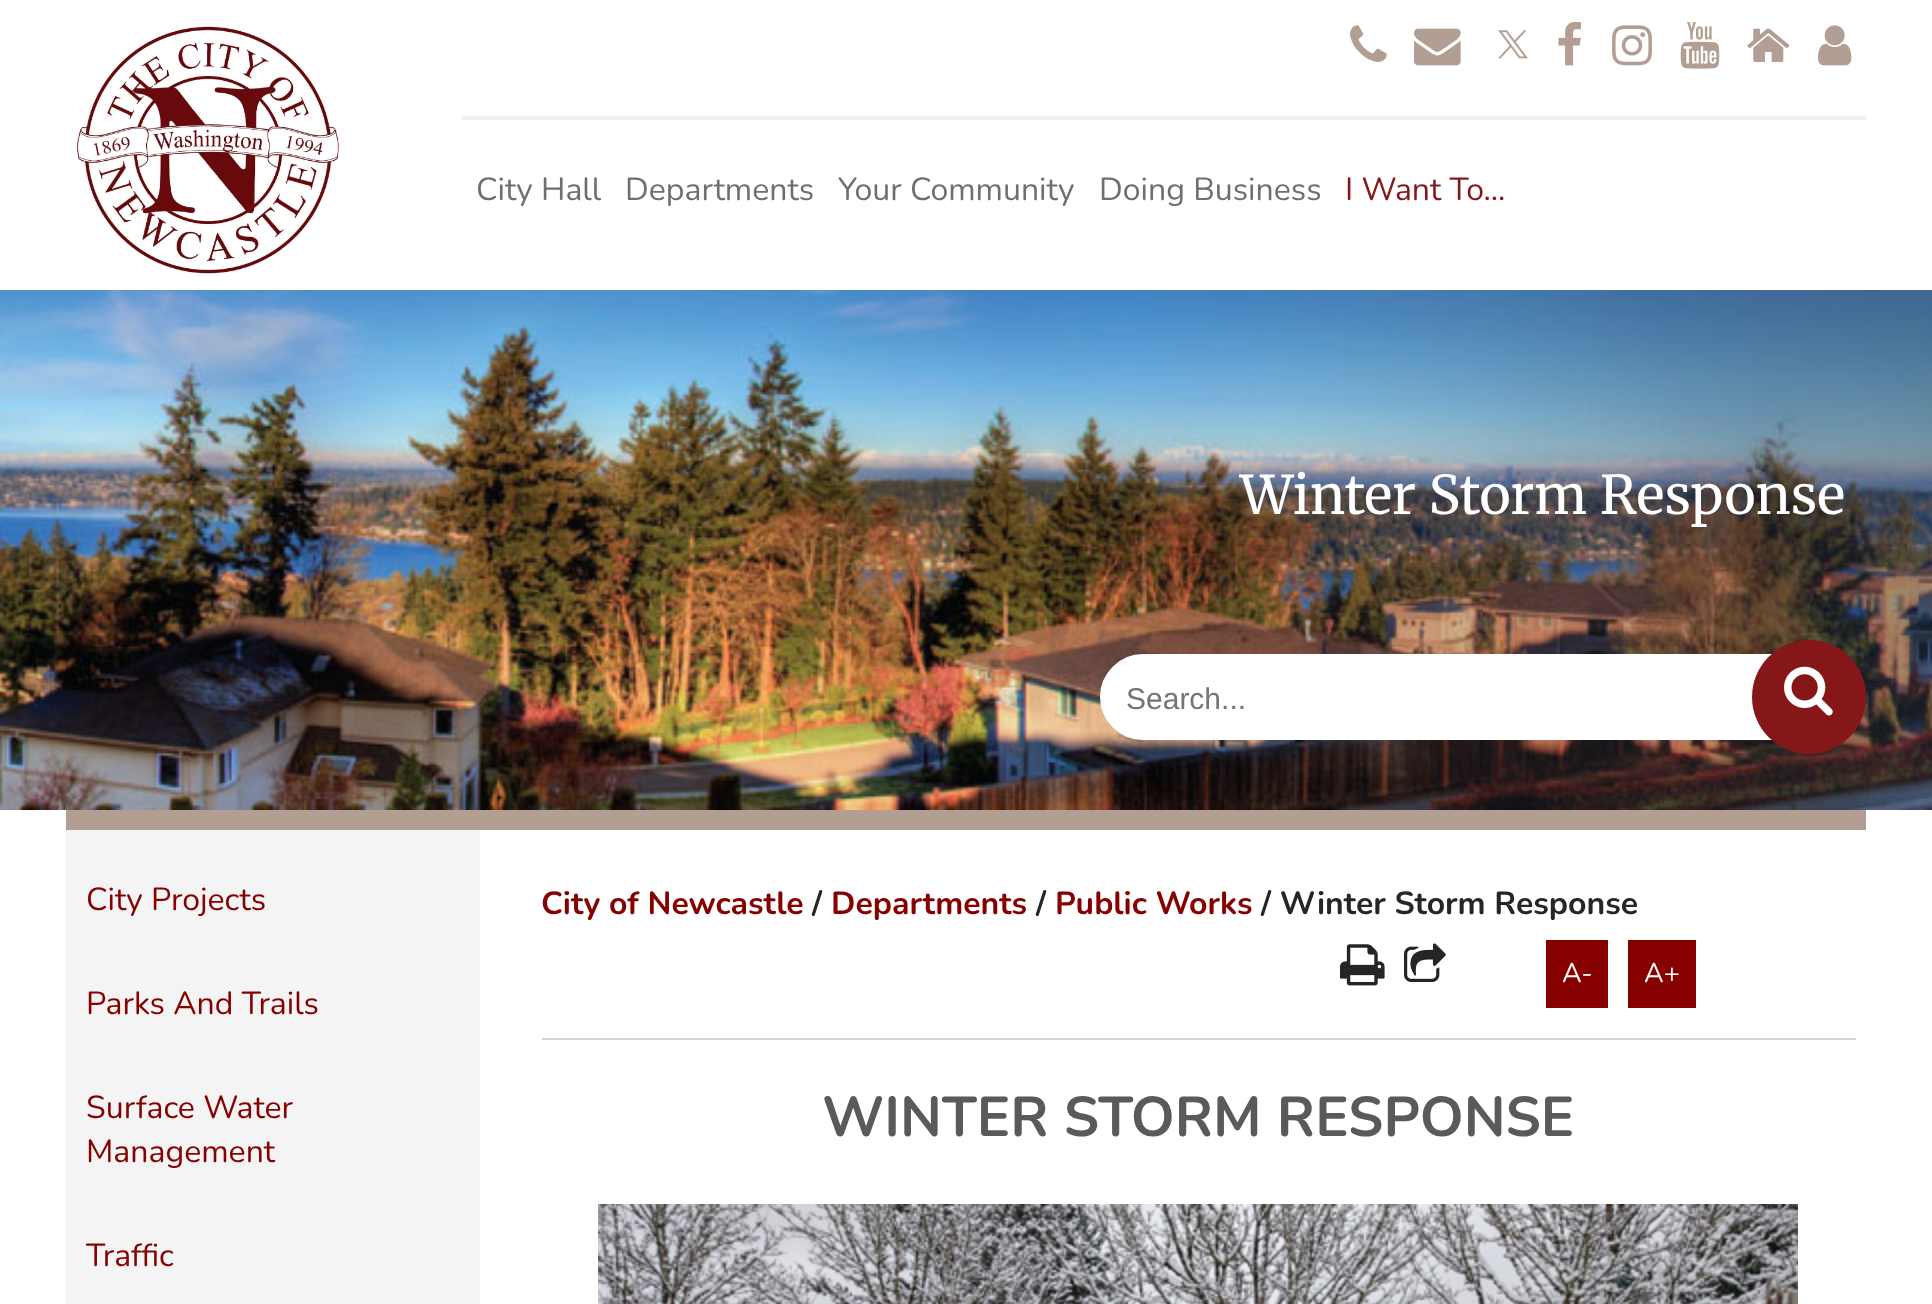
<svg xmlns="http://www.w3.org/2000/svg" width="1932" height="1304" viewBox="0 0 1932 1304">
  <rect width="100%" height="100%" fill="#ffffff"/>
  <image x="76" y="26" width="265" height="248" href="img1.png"/>
  <image x="1350" y="25" width="37" height="37" href="img2.png"/>
  <image x="1414" y="28" width="47" height="38" href="img3.png"/>
  <image x="1498" y="30" width="30" height="29" href="img4.png"/>
  <image x="1558" y="22" width="23" height="44" href="img5.png"/>
  <image x="1612" y="25" width="40" height="41" href="img6.png"/>
  <image x="1680" y="22" width="40" height="47" href="img7.png"/>
  <image x="1747" y="28" width="43" height="34" href="img8.png"/>
  <image x="1818" y="25" width="34" height="41" href="img9.png"/>
  <rect x="462" y="116" width="1404" height="4" fill="#eff0f0"/>
  <text x="476" y="200" font-family="Nunito" font-size="32" fill="#6f6f70">City Hall</text>
  <text x="625" y="200" font-family="Nunito" font-size="32" fill="#6f6f70">Departments</text>
  <text x="838" y="200" font-family="Nunito" font-size="32" fill="#6f6f70">Your Community</text>
  <text x="1099" y="200" font-family="Nunito" font-size="32" fill="#6f6f70">Doing Business</text>
  <text x="1345" y="200" font-family="Nunito" font-size="32" fill="#861719">I Want To...</text>
  <image x="0" y="290" width="1932" height="520" href="img10.png"/>
  <text x="1240" y="514" font-family="Merriweather" font-size="53.25" fill="#ffffff">Winter Storm Response</text>
  <path d="M1143 655H1781V739H1143C1120 739 1101 720 1101 697C1101 674 1120 655 1143 655Z" fill="#ffffff" stroke="#ffffff" stroke-width="2"/>
  <text x="1126" y="709" font-family="Liberation Sans" font-size="30" fill="#757575">Search...</text>
  <circle cx="1809" cy="697" r="57" fill="#861719"/>
  <image x="1784" y="666" width="49" height="50" href="img11.png"/>
  <rect x="66" y="810" width="1800" height="20" fill="#b29e92"/>
  <rect x="66" y="830" width="414" height="474" fill="#f4f4f4"/>
  <text x="86" y="910" font-family="Nunito" font-size="32" fill="#860000">City Projects</text>
  <text x="86" y="1014" font-family="Nunito" font-size="32" fill="#860000">Parks And Trails</text>
  <text x="86" y="1118" font-family="Nunito" font-size="32" fill="#860000">Surface Water</text>
  <text x="86" y="1162" font-family="Nunito" font-size="32" fill="#860000">Management</text>
  <text x="86" y="1266" font-family="Nunito" font-size="32" fill="#860000">Traffic</text>
  <text x="541" y="914" font-family="Nunito" font-size="32" font-weight="bold" fill="#860000">City of Newcastle</text>
  <text x="812" y="914" font-family="Nunito" font-size="32" font-weight="bold" fill="#262626">/</text>
  <text x="831" y="914" font-family="Nunito" font-size="32" font-weight="bold" fill="#860000">Departments</text>
  <text x="1036" y="914" font-family="Nunito" font-size="32" font-weight="bold" fill="#262626">/</text>
  <text x="1055" y="914" font-family="Nunito" font-size="32" font-weight="bold" fill="#860000">Public Works</text>
  <text x="1261" y="914" font-family="Nunito" font-size="32" font-weight="bold" fill="#262626">/ Winter Storm Response</text>
  <image x="1340" y="944" width="45" height="42" href="img12.png"/>
  <image x="1404" y="943" width="42" height="39" href="img13.png"/>
  <rect x="1546" y="940" width="62" height="68" fill="#860000"/>
  <text x="1562" y="982" font-family="Nunito" font-size="27" fill="#ffffff">A-</text>
  <rect x="1628" y="940" width="68" height="68" fill="#860000"/>
  <text x="1644" y="982" font-family="Nunito" font-size="27" fill="#ffffff">A+</text>
  <rect x="542" y="1038" width="1314" height="2" fill="#d1d3d4"/>
  <text x="822" y="1136" font-family="Nunito" font-size="56" font-weight="bold" fill="#5a5a5a">WINTER STORM RESPONSE</text>
  <image x="598" y="1204" width="1200" height="100" href="img14.png"/>
</svg>
